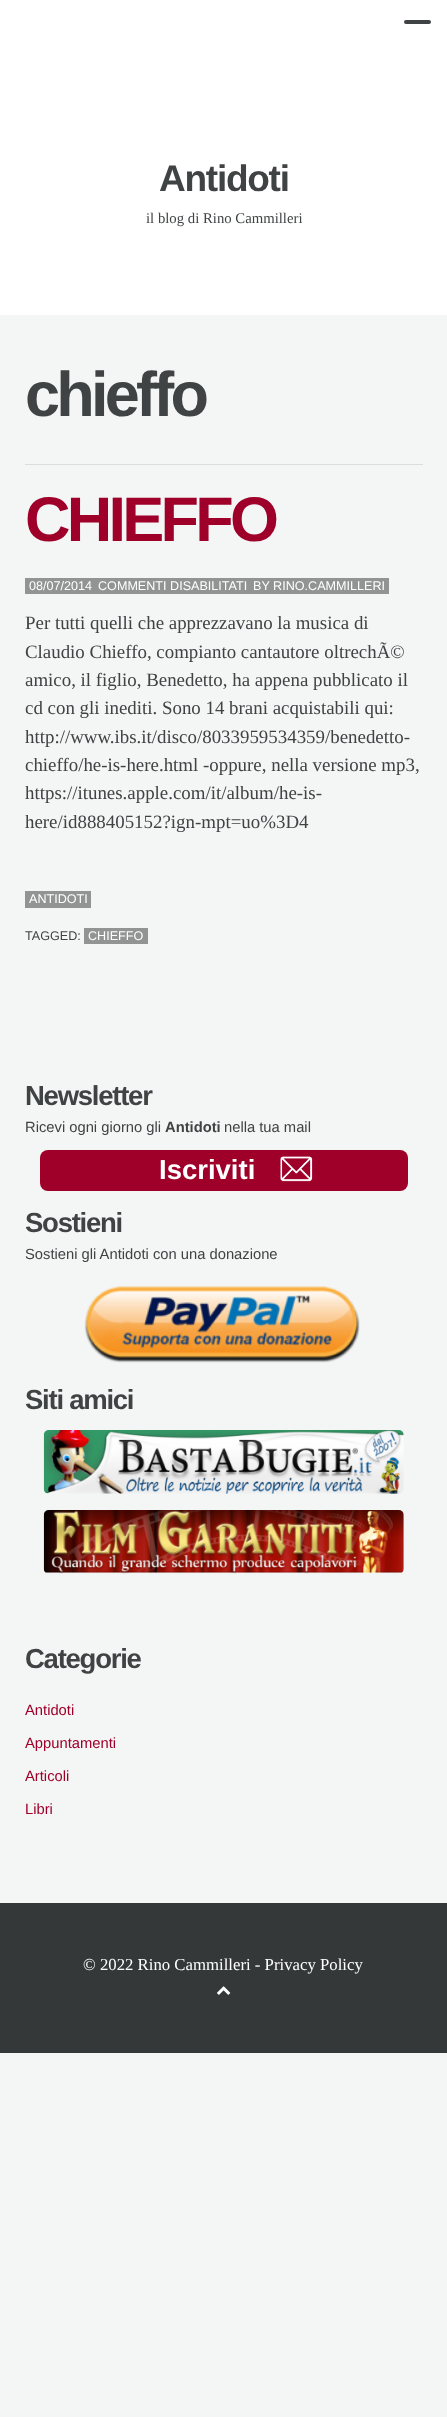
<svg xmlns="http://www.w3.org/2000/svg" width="447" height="2417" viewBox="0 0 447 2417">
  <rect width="100%" height="100%" fill="#f4f5f5"/>
  <rect x="0" y="0" width="447" height="315" fill="#ffffff"/>
  <rect x="404" y="20" width="27" height="4" rx="2" fill="#404344"/>
  <text x="159" y="191" font-family="Liberation Sans" font-size="37" font-weight="bold" letter-spacing="-1.25" fill="#404344">Antidoti</text>
  <text x="146" y="223" font-family="Liberation Serif" font-size="14.75" fill="#404344">il blog di Rino Cammilleri</text>
  <rect x="25" y="464" width="398" height="1" fill="#dbdcdc"/>
  <text x="25" y="416" font-family="Liberation Sans" font-size="63" font-weight="bold" letter-spacing="-3.75" fill="#404344">chieffo</text>
  <text x="25" y="541" font-family="Liberation Sans" font-size="63" font-weight="bold" letter-spacing="-3.75" fill="#9e002a">CHIEFFO</text>
  <rect x="25" y="578" width="364" height="16" fill="#929393"/>
  <text x="29" y="590" font-family="Liberation Sans" font-size="12.6" fill="#ffffff">08/07/2014</text>
  <text x="98" y="590" font-family="Liberation Sans" font-size="12.6" fill="#ffffff">COMMENTI DISABILITATI</text>
  <text x="253" y="590" font-family="Liberation Sans" font-size="12.6" fill="#ffffff">BY RINO.CAMMILLERI</text>
  <text x="25" y="629" font-family="Liberation Serif" font-size="18.9" fill="#404344">Per tutti quelli che apprezzavano la musica di</text>
  <text x="25" y="658" font-family="Liberation Serif" font-size="18.9" fill="#404344">Claudio Chieffo, compianto cantautore oltrechÃ©</text>
  <text x="25" y="686" font-family="Liberation Serif" font-size="18.9" fill="#404344">amico, il figlio, Benedetto, ha appena pubblicato il</text>
  <text x="25" y="714" font-family="Liberation Serif" font-size="18.9" fill="#404344">cd con gli inediti. Sono 14 brani acquistabili qui:</text>
  <text x="25" y="743" font-family="Liberation Serif" font-size="18.9" fill="#404344">http://www.ibs.it/disco/8033959534359/benedetto-</text>
  <text x="25" y="771" font-family="Liberation Serif" font-size="18.9" fill="#404344">chieffo/he-is-here.html -oppure, nella versione mp3,</text>
  <text x="25" y="799" font-family="Liberation Serif" font-size="18.9" fill="#404344">https://itunes.apple.com/it/album/he-is-</text>
  <text x="25" y="828" font-family="Liberation Serif" font-size="18.9" fill="#404344">here/id888405152?ign-mpt=uo%3D4</text>
  <rect x="25" y="891" width="66" height="17" fill="#929393"/>
  <text x="29" y="903" font-family="Liberation Sans" font-size="12.6" fill="#ffffff">ANTIDOTI</text>
  <text x="25" y="940" font-family="Liberation Sans" font-size="12.6" fill="#404344">TAGGED:</text>
  <rect x="84" y="928" width="64" height="16" fill="#929393"/>
  <text x="88" y="940" font-family="Liberation Sans" font-size="12.6" fill="#ffffff">CHIEFFO</text>
  <text x="25" y="1105" font-family="Liberation Sans" font-size="27.5" font-weight="bold" letter-spacing="-1.25" fill="#404344">Newsletter</text>
  <text x="25" y="1132" font-family="Liberation Sans" font-size="14.75" fill="#404344">Ricevi ogni giorno gli</text>
  <text x="165" y="1132" font-family="Liberation Sans" font-size="14.75" font-weight="bold" fill="#404344">Antidoti</text>
  <text x="224" y="1132" font-family="Liberation Sans" font-size="14.75" fill="#404344">nella tua mail</text>
  <rect x="40" y="1150" width="368" height="41" rx="8" fill="#9e002a"/>
  <text x="159" y="1179" font-family="Liberation Sans" font-size="27.5" font-weight="bold" fill="#ffffff">Iscriviti</text>
  <image x="280" y="1156" width="33" height="26" href="img1.png"/>
  <text x="25" y="1232" font-family="Liberation Sans" font-size="27.5" font-weight="bold" letter-spacing="-1.25" fill="#404344">Sostieni</text>
  <text x="25" y="1259" font-family="Liberation Sans" font-size="14.75" fill="#404344">Sostieni gli Antidoti con una donazione</text>
  <image x="84" y="1286" width="276" height="77" href="img2.png"/>
  <text x="25" y="1409" font-family="Liberation Sans" font-size="27.5" font-weight="bold" letter-spacing="-1.25" fill="#404344">Siti amici</text>
  <image x="43" y="1430" width="361" height="64" href="img3.png"/>
  <image x="43" y="1510" width="361" height="64" href="img4.png"/>
  <text x="25" y="1668" font-family="Liberation Sans" font-size="27.5" font-weight="bold" letter-spacing="-1.25" fill="#404344">Categorie</text>
  <text x="25" y="1715" font-family="Liberation Sans" font-size="14.75" fill="#9e002a">Antidoti</text>
  <text x="25" y="1748" font-family="Liberation Sans" font-size="14.75" fill="#9e002a">Appuntamenti</text>
  <text x="25" y="1781" font-family="Liberation Sans" font-size="14.75" fill="#9e002a">Articoli</text>
  <text x="25" y="1814" font-family="Liberation Sans" font-size="14.75" fill="#9e002a">Libri</text>
  <rect x="0" y="1903" width="447" height="150" fill="#343839"/>
  <text x="83" y="1970" font-family="Liberation Serif" font-size="16.75" fill="#ffffff">© 2022 Rino Cammilleri - Privacy Policy</text>
  <image x="217" y="1986" width="14" height="9" href="img5.png"/>
</svg>
